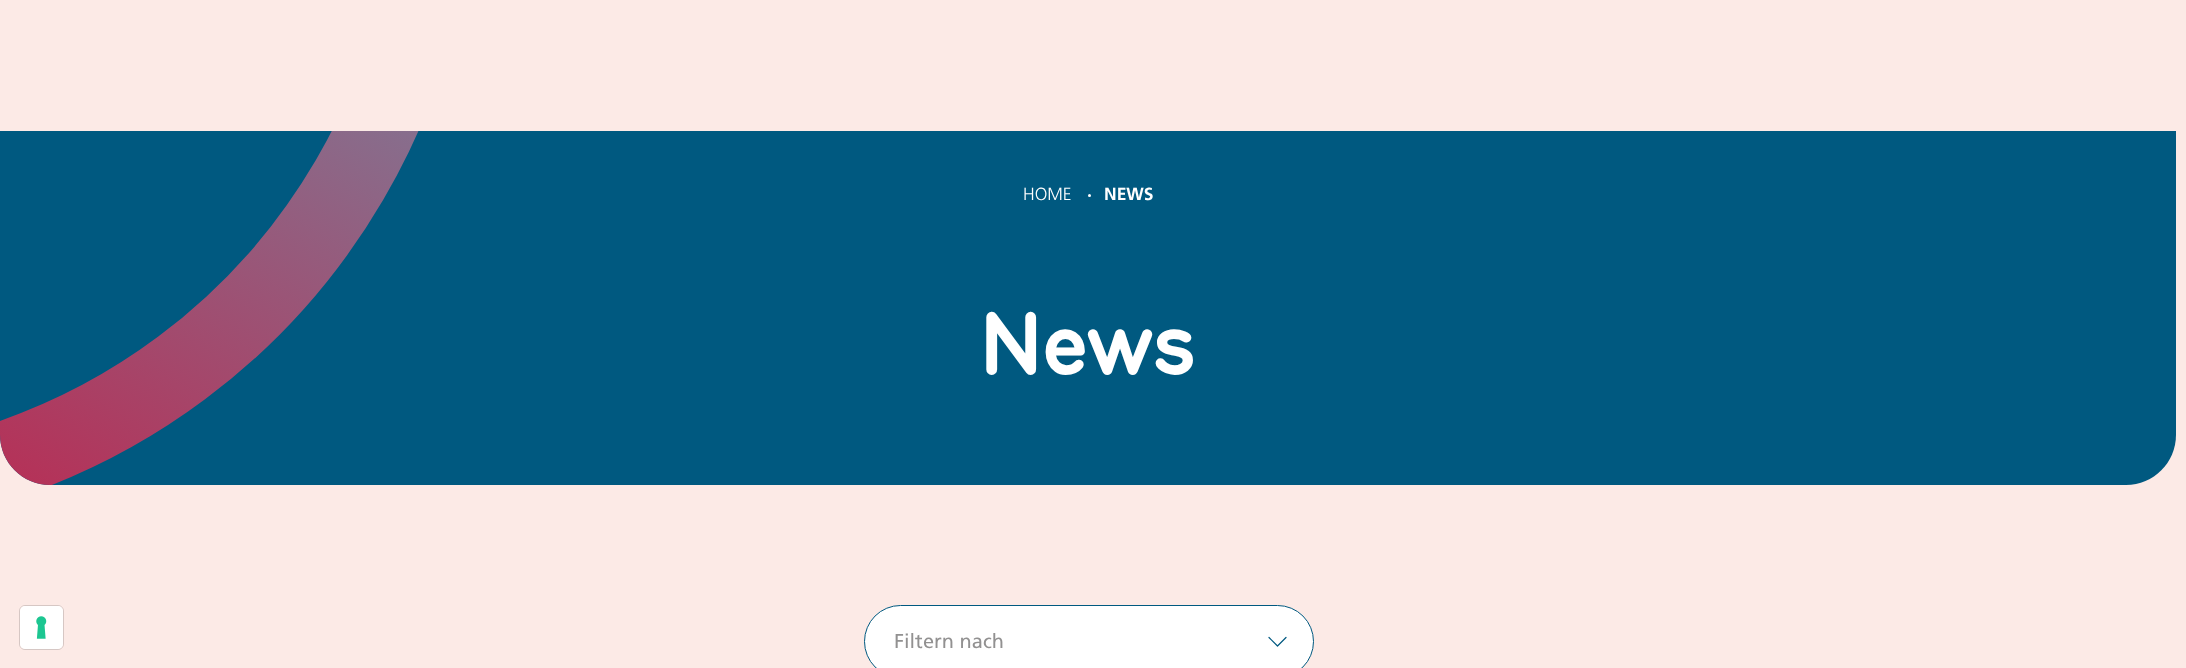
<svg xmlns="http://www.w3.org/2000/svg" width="2186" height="668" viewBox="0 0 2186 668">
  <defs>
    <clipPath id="clip1"><path d="M0 0H2176V435C2176 462.5 2153.5 485 2126 485H50C22.5 485 0 462.5 0 435Z"/></clipPath>
    <linearGradient id="g1" gradientUnits="userSpaceOnUse" x1="-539" y1="440" x2="143" y2="-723"><stop offset="0" stop-color="#cb143e"/><stop offset="1" stop-color="#51b6cc"/></linearGradient>
  </defs>
  <rect width="100%" height="100%" fill="#fceae6"/>
  <path d="M0 0H2176V435C2176 462.5 2153.5 485 2126 485H50C22.5 485 0 462.5 0 435Z" fill="#005980"/>
  <g clip-path="url(#clip1)">
    <path d="M349.5 180C527-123 425.5-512 122.5-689.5C-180-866.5-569-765-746.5-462.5C-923.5-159.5-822 229.5-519.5 406.5C-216.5 584 172.5 482.5 349.5 180Z" fill="none" stroke="url(#g1)" stroke-width="78.2"/>
  </g>
  <rect x="0" y="0" width="2176" height="131" fill="#fceae6"/>
  <rect x="19.5" y="605.5" width="44" height="44" rx="5.5" fill="none" stroke="#d6c7c4"/>
  <rect x="20" y="606" width="43" height="43" rx="5" fill="#ffffff"/>
  <image x="36" y="616" width="11" height="23" href="img1.png"/>
  <text x="1023" y="200" font-family="Frutiger" font-size="17.5" font-weight="300" fill="#ffffff">HOME</text>
  <circle cx="1089.5" cy="195.5" r="1.5" fill="#ffffff"/>
  <text x="1104" y="200" font-family="Frutiger" font-size="17.5" font-weight="bold" fill="#ffffff">NEWS</text>
  <text x="980" y="374" font-family="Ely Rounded" font-size="87.5" font-weight="bold" fill="#ffffff">News</text>
  <rect x="864.5" y="605.5" width="449" height="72" rx="36" fill="#ffffff" stroke="#005980"/>
  <text x="894" y="648" font-family="Frutiger" font-size="20" fill="#929191">Filtern nach</text>
  <path d="M1286 637.5L1277.5 646L1269 637.5" fill="none" stroke="#005980" stroke-width="1.2" stroke-linecap="round" stroke-linejoin="round"/>
</svg>
